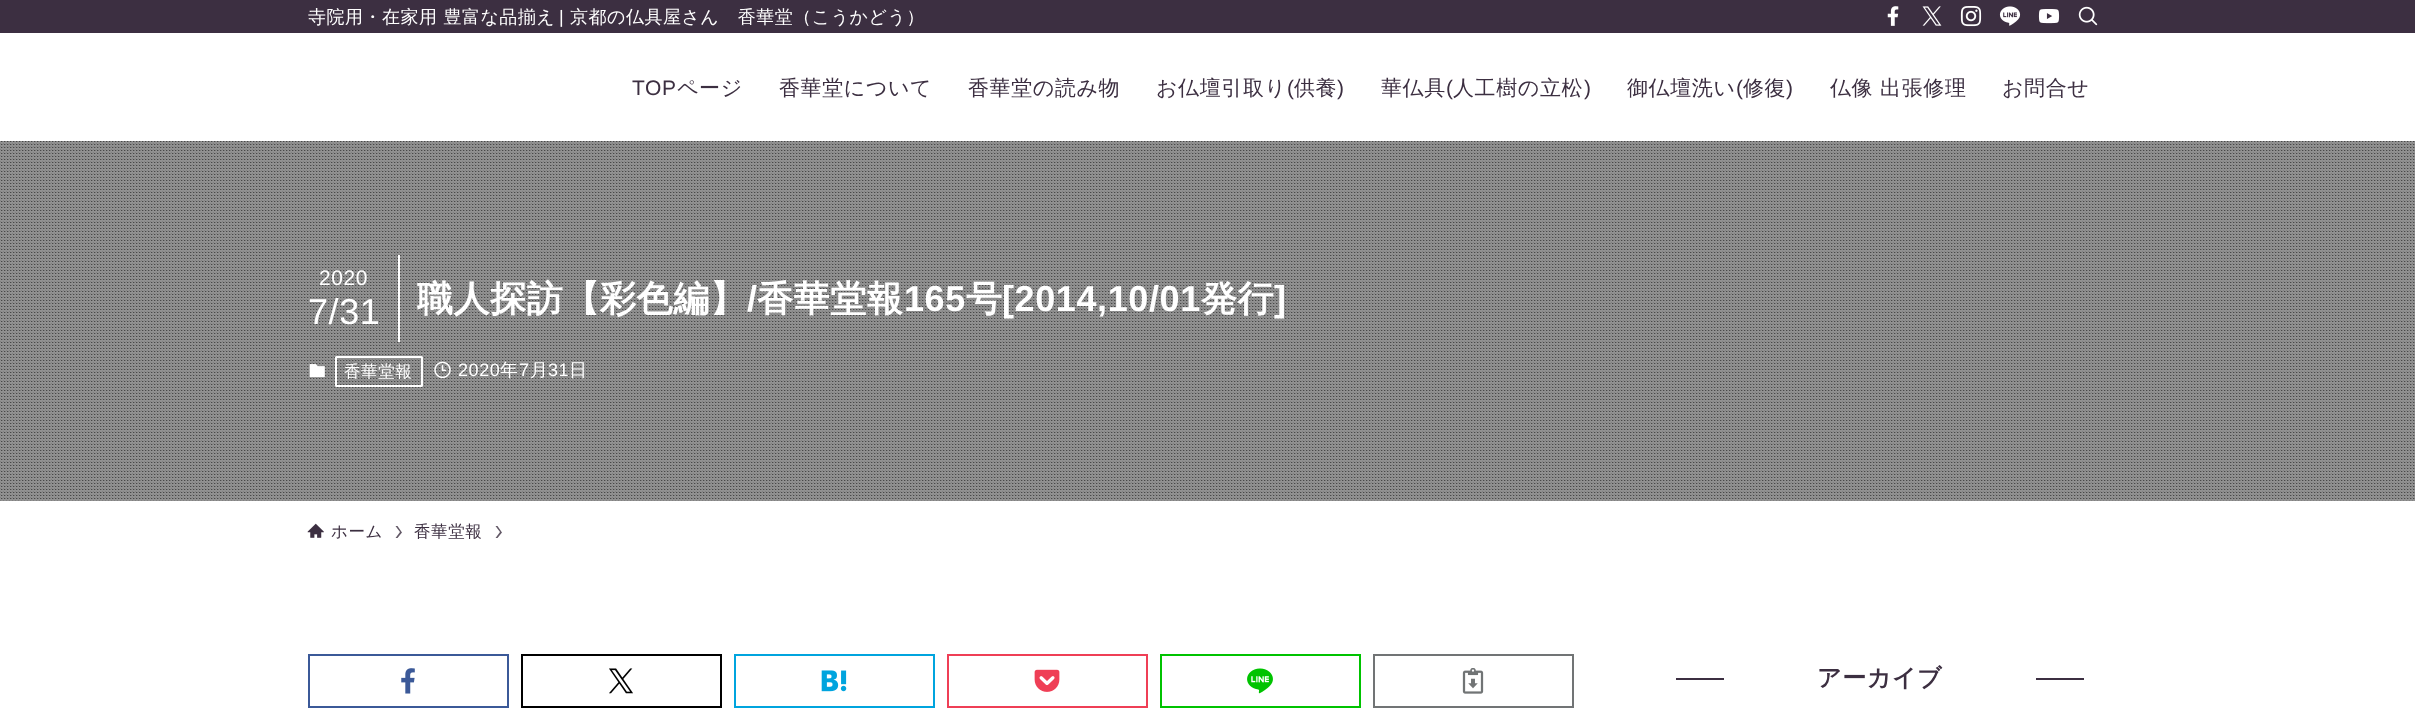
<svg xmlns="http://www.w3.org/2000/svg" width="2415" height="717" viewBox="0 0 2415 717">
  <rect width="100%" height="100%" fill="#ffffff"/>
  <rect x="0" y="0" width="2415" height="33" fill="#3c2f41"/>
  <text x="308" y="23" font-family="WenQuanYi Zen Hei" font-size="18" font-weight="500" letter-spacing="0.5" fill="#ffffff">寺院用・在家用 豊富な品揃え</text>
  <text x="559" y="23" font-family="Liberation Sans" font-size="18" letter-spacing="0.5" fill="#ffffff">|</text>
  <text x="570" y="23" font-family="WenQuanYi Zen Hei" font-size="18" font-weight="500" letter-spacing="0.5" fill="#ffffff">京都の仏具屋さん　香華堂（こうかどう）</text>
  <image x="1887" y="6" width="12" height="20" href="img1.png"/>
  <image x="1922" y="6" width="20" height="20" href="img2.png"/>
  <image x="1960" y="6" width="22" height="21" href="img3.png"/>
  <image x="1999" y="6" width="22" height="20" href="img4.png"/>
  <image x="2038" y="9" width="22" height="15" href="img5.png"/>
  <image x="2078" y="6" width="20" height="20" href="img6.png"/>
  <text x="632" y="95" font-family="Liberation Sans" font-size="21" letter-spacing="0.6" fill="#3c2f41">TOP</text>
  <text x="677" y="95" font-family="WenQuanYi Zen Hei" font-size="21" font-weight="500" letter-spacing="0.6" fill="#3c2f41">ページ</text>
  <text x="779" y="95" font-family="WenQuanYi Zen Hei" font-size="21" font-weight="500" letter-spacing="0.6" fill="#3c2f41">香華堂について</text>
  <text x="968" y="95" font-family="WenQuanYi Zen Hei" font-size="21" font-weight="500" letter-spacing="0.6" fill="#3c2f41">香華堂の読み物</text>
  <text x="1156" y="95" font-family="WenQuanYi Zen Hei" font-size="21" font-weight="500" letter-spacing="0.6" fill="#3c2f41">お仏壇引取り</text>
  <text x="1287" y="95" font-family="Liberation Sans" font-size="21" letter-spacing="0.6" fill="#3c2f41">(</text>
  <text x="1294" y="95" font-family="WenQuanYi Zen Hei" font-size="21" font-weight="500" letter-spacing="0.6" fill="#3c2f41">供養</text>
  <text x="1337" y="95" font-family="Liberation Sans" font-size="21" letter-spacing="0.6" fill="#3c2f41">)</text>
  <text x="1381" y="95" font-family="WenQuanYi Zen Hei" font-size="21" font-weight="500" letter-spacing="0.6" fill="#3c2f41">華仏具</text>
  <text x="1446" y="95" font-family="Liberation Sans" font-size="21" letter-spacing="0.6" fill="#3c2f41">(</text>
  <text x="1453" y="95" font-family="WenQuanYi Zen Hei" font-size="21" font-weight="500" letter-spacing="0.6" fill="#3c2f41">人工樹の立松</text>
  <text x="1584" y="95" font-family="Liberation Sans" font-size="21" letter-spacing="0.6" fill="#3c2f41">)</text>
  <text x="1627" y="95" font-family="WenQuanYi Zen Hei" font-size="21" font-weight="500" letter-spacing="0.6" fill="#3c2f41">御仏壇洗い</text>
  <text x="1736" y="95" font-family="Liberation Sans" font-size="21" letter-spacing="0.6" fill="#3c2f41">(</text>
  <text x="1743" y="95" font-family="WenQuanYi Zen Hei" font-size="21" font-weight="500" letter-spacing="0.6" fill="#3c2f41">修復</text>
  <text x="1786" y="95" font-family="Liberation Sans" font-size="21" letter-spacing="0.6" fill="#3c2f41">)</text>
  <text x="1830" y="95" font-family="WenQuanYi Zen Hei" font-size="21" font-weight="500" letter-spacing="0.6" fill="#3c2f41">仏像 出張修理</text>
  <text x="2002" y="95" font-family="WenQuanYi Zen Hei" font-size="21" font-weight="500" letter-spacing="0.6" fill="#3c2f41">お問合せ</text>
  <rect x="0" y="141" width="2415" height="360" fill="#919191"/>
  <image x="0" y="141" width="2415" height="360" href="img7.png"/>
  <rect x="398" y="255" width="2" height="87" fill="#ffffff"/>
  <text x="319" y="285" font-family="Liberation Sans" font-size="21" letter-spacing="0.6" fill="#ffffff">2020</text>
  <text x="308" y="324" font-family="Liberation Sans" font-size="36" letter-spacing="0.6" fill="#ffffff">7/31</text>
  <text x="417" y="311" font-family="WenQuanYi Zen Hei" font-size="36" font-weight="bold" letter-spacing="0.6" fill="#ffffff">職人探訪【彩色編】</text>
  <text x="747" y="311" font-family="Liberation Sans" font-size="36" font-weight="bold" letter-spacing="0.6" fill="#ffffff">/</text>
  <text x="757" y="311" font-family="WenQuanYi Zen Hei" font-size="36" font-weight="bold" letter-spacing="0.6" fill="#ffffff">香華堂報</text>
  <text x="904" y="311" font-family="Liberation Sans" font-size="36" font-weight="bold" letter-spacing="0.6" fill="#ffffff">165</text>
  <text x="966" y="311" font-family="WenQuanYi Zen Hei" font-size="36" font-weight="bold" letter-spacing="0.6" fill="#ffffff">号</text>
  <text x="1002" y="311" font-family="Liberation Sans" font-size="36" font-weight="bold" letter-spacing="0.6" fill="#ffffff">[2014,10/01</text>
  <text x="1201" y="311" font-family="WenQuanYi Zen Hei" font-size="36" font-weight="bold" letter-spacing="0.6" fill="#ffffff">発行</text>
  <text x="1274" y="311" font-family="Liberation Sans" font-size="36" font-weight="bold" letter-spacing="0.6" fill="#ffffff">]</text>
  <image x="309" y="364" width="16" height="14" href="img8.png"/>
  <rect x="336" y="357" width="86" height="29" rx="0.5" fill="none" stroke="#ffffff" stroke-width="2"/>
  <text x="344" y="377" font-family="WenQuanYi Zen Hei" font-size="16.5" font-weight="500" letter-spacing="0.6" fill="#ffffff">香華堂報</text>
  <image x="434" y="361" width="17" height="18" href="img9.png"/>
  <text x="458" y="376" font-family="Liberation Sans" font-size="18" letter-spacing="0.6" fill="#ffffff">2020</text>
  <text x="500" y="376" font-family="WenQuanYi Zen Hei" font-size="18" font-weight="500" letter-spacing="0.6" fill="#ffffff">年</text>
  <text x="519" y="376" font-family="Liberation Sans" font-size="18" letter-spacing="0.6" fill="#ffffff">7</text>
  <text x="530" y="376" font-family="WenQuanYi Zen Hei" font-size="18" font-weight="500" letter-spacing="0.6" fill="#ffffff">月</text>
  <text x="548" y="376" font-family="Liberation Sans" font-size="18" letter-spacing="0.6" fill="#ffffff">31</text>
  <text x="569" y="376" font-family="WenQuanYi Zen Hei" font-size="18" font-weight="500" letter-spacing="0.6" fill="#ffffff">日</text>
  <image x="307" y="523" width="17" height="15" href="img10.png"/>
  <text x="331" y="537" font-family="WenQuanYi Zen Hei" font-size="16.5" font-weight="500" letter-spacing="0.6" fill="#3c2f41">ホーム</text>
  <path d="M397.5 526H395.5L400 532L395.5 538H397.5L402 532.5Z" fill="#635967"/>
  <text x="414" y="537" font-family="WenQuanYi Zen Hei" font-size="16.5" font-weight="500" letter-spacing="0.6" fill="#3c2f41">香華堂報</text>
  <path d="M497.5 526H495.5L500 532L495.5 538H497.5L502 532.5Z" fill="#635967"/>
  <rect x="309" y="655" width="199" height="52" fill="none" stroke="#3b5998" stroke-width="2"/>
  <image x="401" y="668" width="14" height="26" href="img11.png"/>
  <rect x="522" y="655" width="199" height="52" fill="none" stroke="#000000" stroke-width="2"/>
  <image x="609" y="668" width="24" height="26" href="img12.png"/>
  <rect x="735" y="655" width="199" height="52" fill="none" stroke="#00a4de" stroke-width="2"/>
  <image x="821" y="670" width="26" height="22" href="img13.png"/>
  <rect x="948" y="655" width="199" height="52" fill="none" stroke="#ef3f56" stroke-width="2"/>
  <image x="1034" y="669" width="26" height="23" href="img14.png"/>
  <rect x="1161" y="655" width="199" height="52" fill="none" stroke="#00c300" stroke-width="2"/>
  <image x="1247" y="668" width="26" height="26" href="img15.png"/>
  <rect x="1374" y="655" width="199" height="52" fill="none" stroke="#717475" stroke-width="2"/>
  <image x="1462" y="668" width="22" height="26" href="img16.png"/>
  <rect x="1676" y="678" width="48" height="2" fill="#3c2f41"/>
  <text x="1817" y="686" font-family="WenQuanYi Zen Hei" font-size="24" font-weight="bold" letter-spacing="0.6" fill="#3c2f41">アーカイブ</text>
  <rect x="2036" y="678" width="48" height="2" fill="#3c2f41"/>
</svg>
